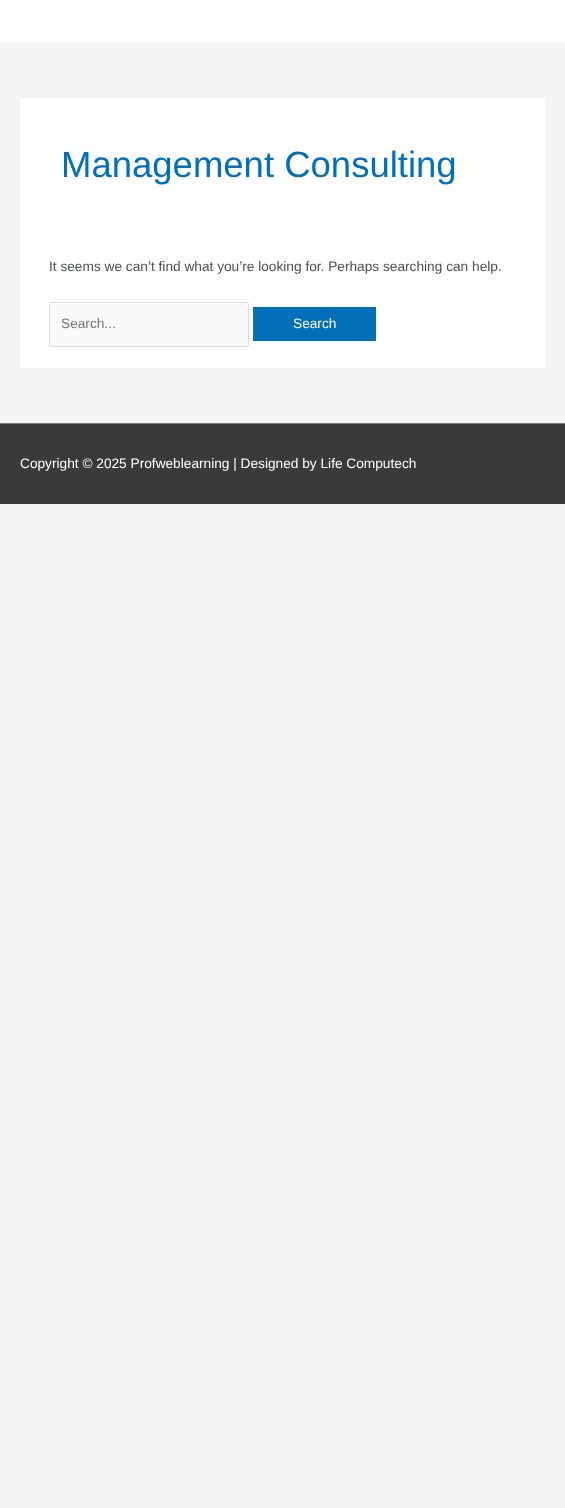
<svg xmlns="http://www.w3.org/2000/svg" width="565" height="1508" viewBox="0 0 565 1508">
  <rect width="100%" height="100%" fill="#f5f5f5"/>
  <rect x="0" y="0" width="565" height="43" fill="#ffffff"/>
  <rect x="20" y="98" width="525" height="270" fill="#ffffff"/>
  <text x="61" y="177" font-family="Liberation Sans" font-size="36.5" fill="#0170b9">Management Consulting</text>
  <text x="49" y="271" font-family="Liberation Sans" font-size="13.7" fill="#4b4f58">It seems we can’t find what you’re looking for. Perhaps searching can help.</text>
  <rect x="49.5" y="302.5" width="199" height="44" rx="1.5" fill="#fafafa" stroke="#dddddd"/>
  <text x="61" y="328" font-family="Liberation Sans" font-size="13.7" fill="#757575">Search...</text>
  <rect x="253" y="307" width="123" height="34" fill="#0170b9"/>
  <text x="293" y="328" font-family="Liberation Sans" font-size="13.7" fill="#ffffff">Search</text>
  <rect x="0" y="423" width="565" height="1" fill="#7a7a7a"/>
  <rect x="0" y="424" width="565" height="80" fill="#3a3a3a"/>
  <text x="20" y="468" font-family="Liberation Sans" font-size="13.7" fill="#ffffff">Copyright © 2025 Profweblearning | Designed by Life Computech</text>
</svg>
